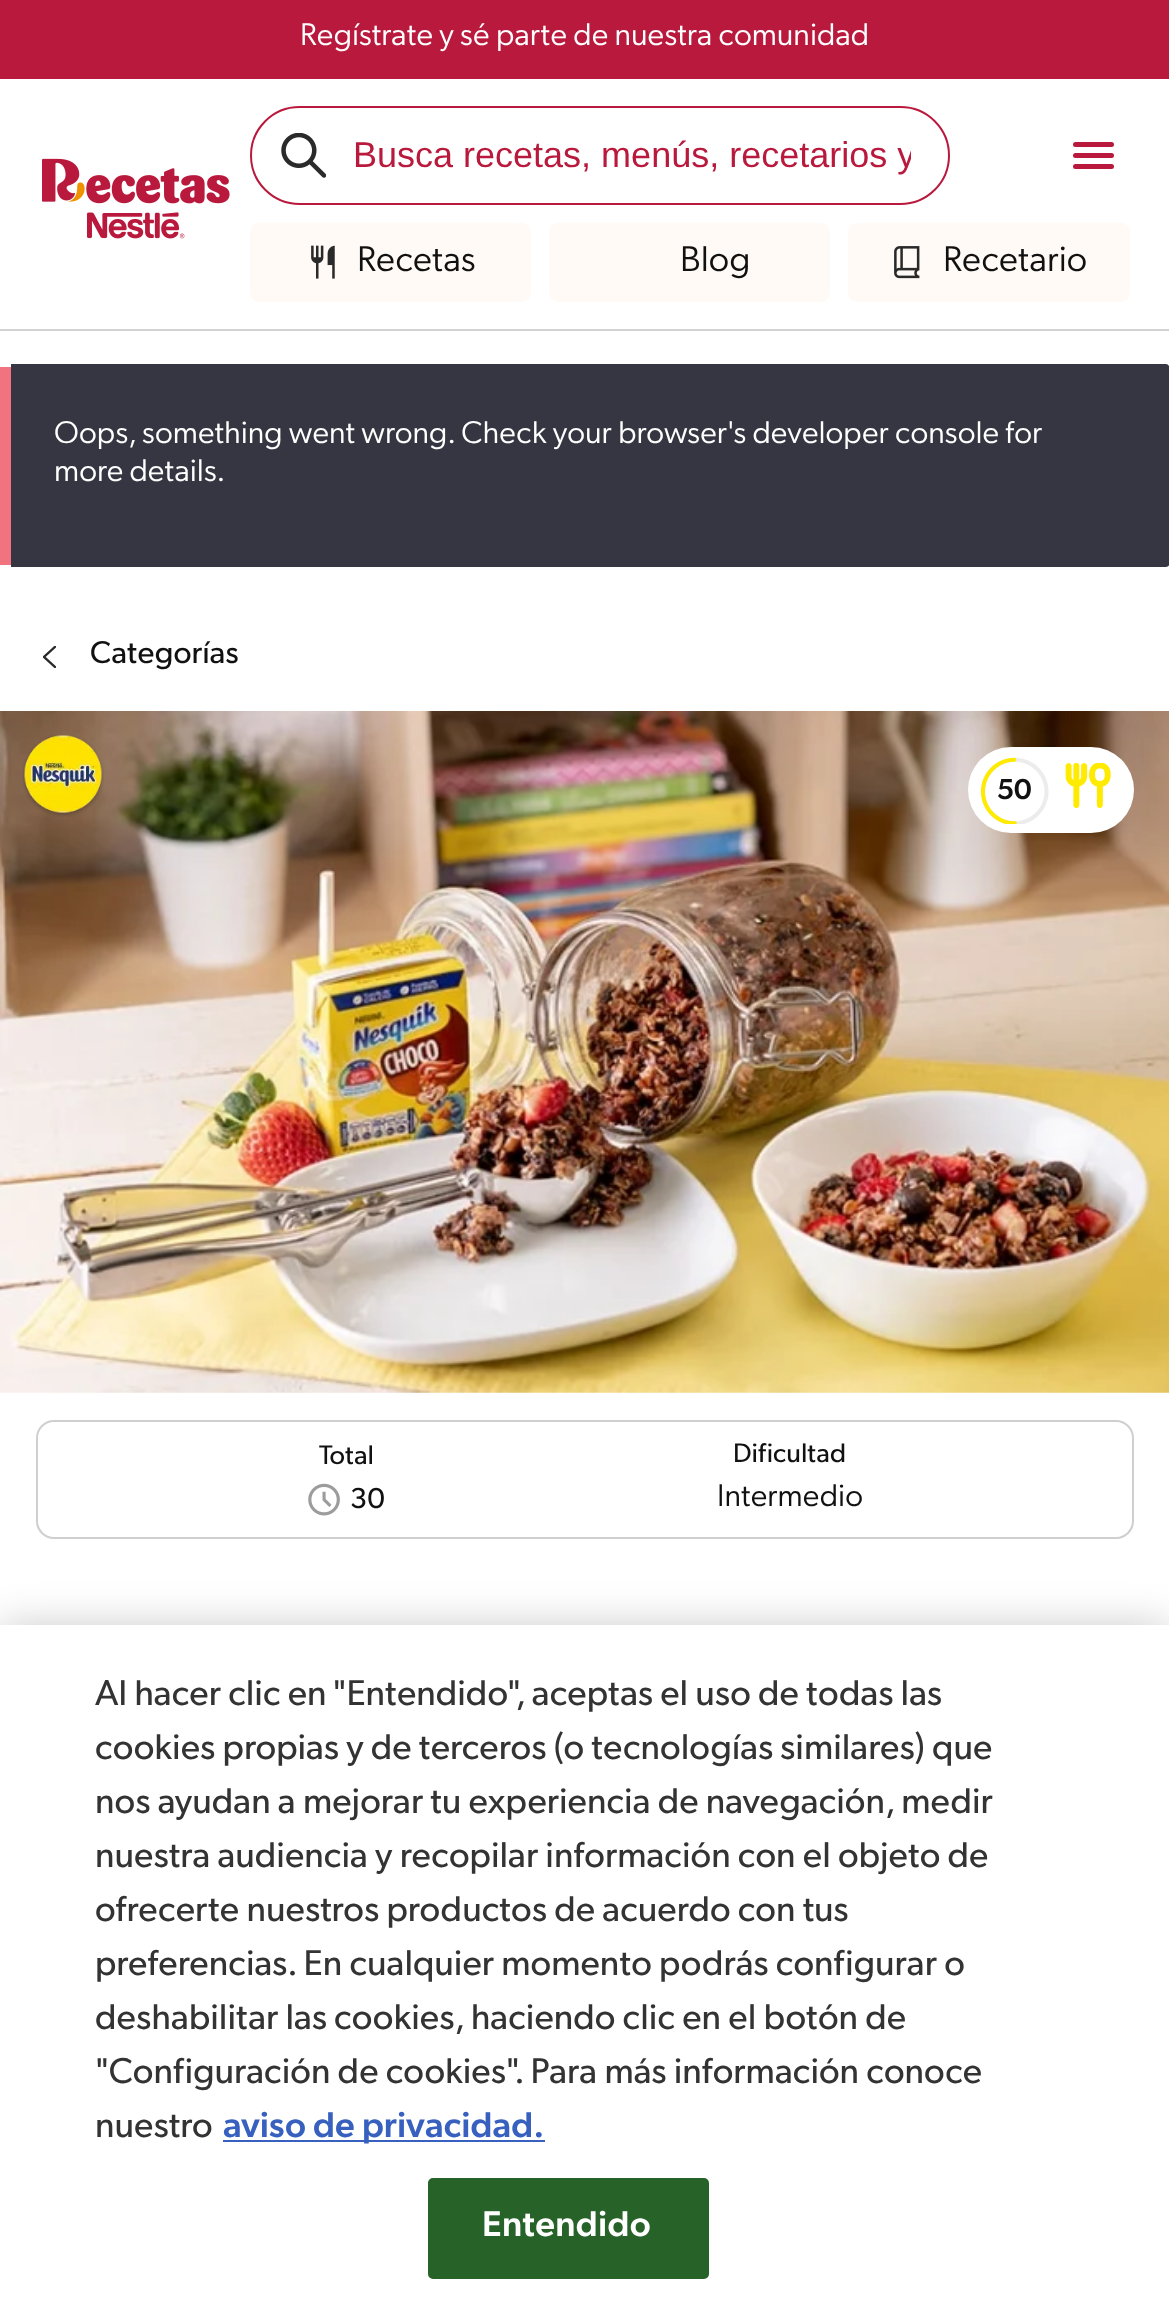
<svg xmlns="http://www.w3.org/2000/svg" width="1169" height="2315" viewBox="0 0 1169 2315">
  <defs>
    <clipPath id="clip1"><rect x="353" y="135" width="558" height="41"/></clipPath>
    <filter id="blur1" x="-50%" y="-200%" width="200%" height="500%"><feGaussianBlur stdDeviation="20"/></filter>
  </defs>
  <rect width="100%" height="100%" fill="#ffffff"/>
  <rect x="0" y="329" width="1169" height="2" fill="#d2d2d2"/>
  <rect x="0" y="0" width="1169" height="79" fill="#b9193c"/>
  <text x="300" y="45" font-family="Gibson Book" font-size="31.5" fill="#ffffff">Regístrate y sé parte de nuestra comunidad</text>
  <image x="42" y="158" width="188" height="81" href="img1.png"/>
  <rect x="251" y="107" width="698" height="97" rx="48.5" fill="none" stroke="#b9193c" stroke-width="2"/>
  <image x="281" y="133" width="45" height="45" href="img2.png"/>
  <g clip-path="url(#clip1)">
    <text x="353" y="167" font-family="Liberation Sans" font-size="36" fill="#b9193c">Busca recetas, menús, recetarios y</text>
  </g>
  <rect x="1073" y="142" width="41" height="5" rx="2.5" fill="#b9193c"/>
  <rect x="1073" y="153" width="41" height="5" rx="2.5" fill="#b9193c"/>
  <rect x="1073" y="164" width="41" height="5" rx="2.5" fill="#b9193c"/>
  <rect x="250" y="223" width="281" height="79" rx="9" fill="#fffaf5"/>
  <image x="311" y="245" width="24" height="34" href="img3.png"/>
  <text x="357" y="271" font-family="Gibson Book" font-size="36" fill="#111111">Recetas</text>
  <rect x="549" y="223" width="281" height="79" rx="9" fill="#fffaf5"/>
  <text x="680" y="271" font-family="Gibson Book" font-size="36" fill="#111111">Blog</text>
  <rect x="848" y="223" width="282" height="79" rx="9" fill="#fffaf5"/>
  <image x="894" y="246" width="26" height="33" href="img4.png"/>
  <text x="943" y="271" font-family="Gibson Book" font-size="36" fill="#111111">Recetario</text>
  <path d="M11 364H1166C1168 364 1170 367 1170 369V562C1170 565 1168 567 1166 567H11Z" fill="#353641"/>
  <rect x="0" y="367" width="11" height="198" fill="#f27380"/>
  <text x="54" y="443" font-family="Gibson Book" font-size="31.5" fill="#ffffff">Oops, something went wrong. Check your browser's developer console for</text>
  <text x="54" y="481" font-family="Gibson Book" font-size="31.5" fill="#ffffff">more details.</text>
  <image x="43" y="646" width="13" height="22" href="img5.png"/>
  <text x="90" y="663" font-family="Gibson" font-size="31.5" fill="#111111">Categorías</text>
  <image x="0" y="711" width="1169" height="682" href="img6.png"/>
  <image x="22" y="735" width="82" height="82" href="img7.png"/>
  <rect x="968" y="747" width="166" height="86" rx="43" fill="#ffffff"/>
  <image x="981" y="757" width="68" height="67" href="img8.png"/>
  <text x="997" y="799" font-family="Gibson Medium" font-size="29" font-weight="500" fill="#111111">50</text>
  <image x="1065" y="763" width="46" height="45" href="img9.png"/>
  <rect x="37" y="1421" width="1096" height="117" rx="17" fill="none" stroke="#cfcfcf" stroke-width="2"/>
  <text x="319" y="1464" font-family="Gibson" font-size="27" fill="#111111">Total</text>
  <image x="308" y="1483" width="32" height="33" href="img10.png"/>
  <text x="350" y="1508" font-family="Gibson" font-size="29" fill="#111111">30</text>
  <text x="733" y="1462" font-family="Gibson" font-size="27" fill="#111111">Dificultad</text>
  <text x="717" y="1506" font-family="Gibson Book" font-size="31.5" fill="#111111">Intermedio</text>
  <rect x="0" y="1625" width="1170" height="690" fill="#000000" fill-opacity="0.2" filter="url(#blur1)"/>
  <rect x="0" y="1625" width="1169" height="690" fill="#ffffff"/>
  <text x="95" y="1705" font-family="Gibson" font-size="36" fill="#333333">Al hacer clic en "Entendido", aceptas el uso de todas las</text>
  <text x="95" y="1759" font-family="Gibson" font-size="36" fill="#333333">cookies propias y de terceros (o tecnologías similares) que</text>
  <text x="95" y="1813" font-family="Gibson" font-size="36" fill="#333333">nos ayudan a mejorar tu experiencia de navegación, medir</text>
  <text x="95" y="1867" font-family="Gibson" font-size="36" fill="#333333">nuestra audiencia y recopilar información con el objeto de</text>
  <text x="95" y="1921" font-family="Gibson" font-size="36" fill="#333333">ofrecerte nuestros productos de acuerdo con tus</text>
  <text x="95" y="1975" font-family="Gibson" font-size="36" fill="#333333">preferencias. En cualquier momento podrás configurar o</text>
  <text x="95" y="2029" font-family="Gibson" font-size="36" fill="#333333">deshabilitar las cookies, haciendo clic en el botón de</text>
  <text x="95" y="2083" font-family="Gibson" font-size="36" fill="#333333">"Configuración de cookies". Para más información conoce</text>
  <text x="95" y="2137" font-family="Gibson" font-size="36" fill="#333333">nuestro</text>
  <rect x="223" y="2140" width="322" height="2" fill="#3860be"/>
  <text x="223" y="2137" font-family="Gibson Medium" font-size="36" font-weight="500" fill="#3860be">aviso de privacidad.</text>
  <rect x="429" y="2179" width="279" height="99" rx="4" fill="#276328" stroke="#276328" stroke-width="2"/>
  <text x="482" y="2236" font-family="Gibson Medium" font-size="36" font-weight="500" letter-spacing="0.25" fill="#ffffff">Entendido</text>
</svg>
